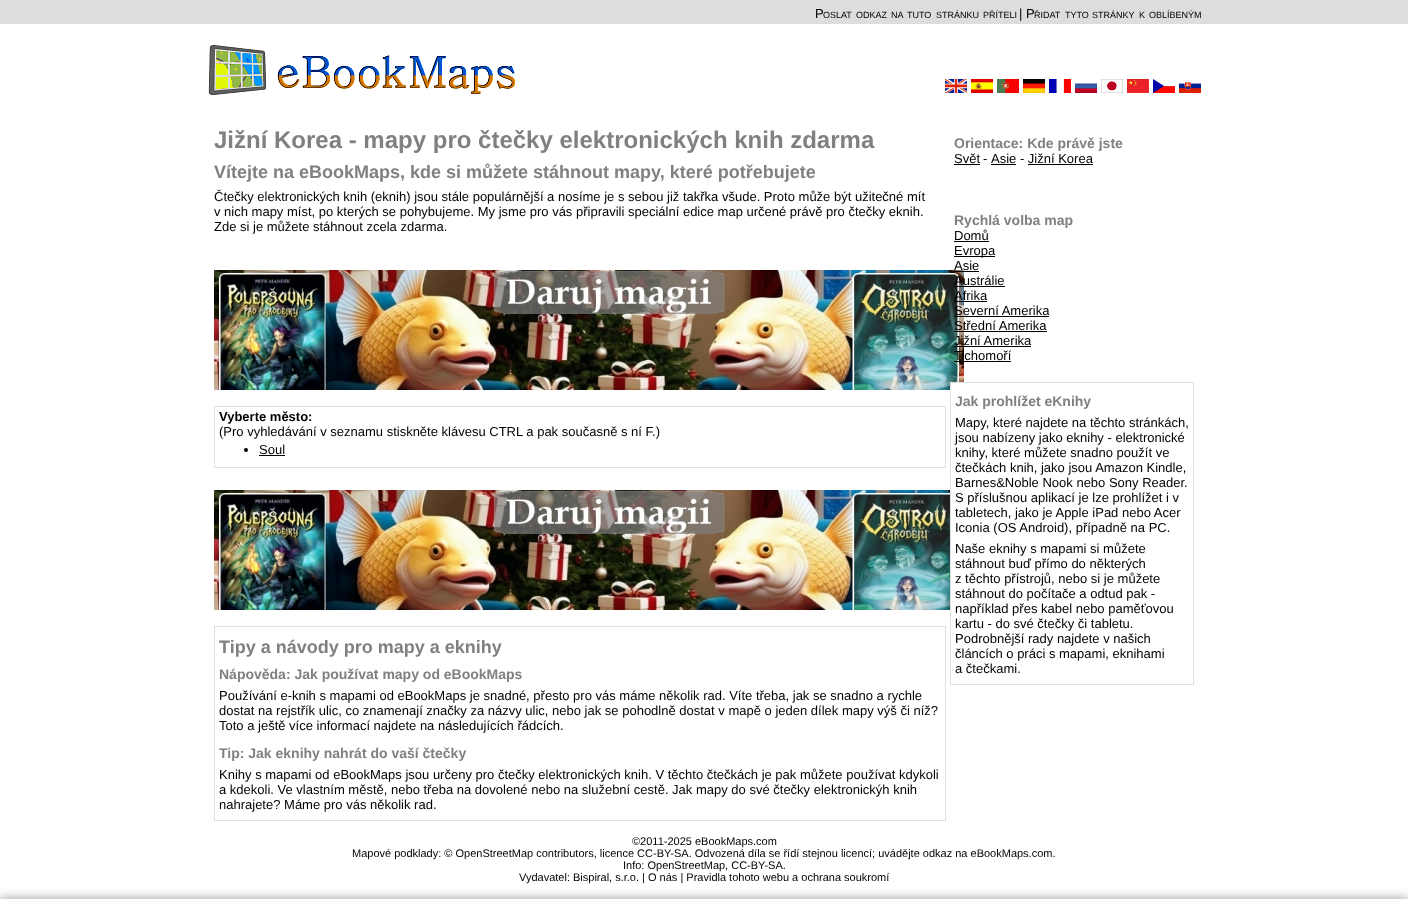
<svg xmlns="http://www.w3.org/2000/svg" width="1408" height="899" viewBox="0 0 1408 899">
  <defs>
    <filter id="blur1" x="-50%" y="-200%" width="200%" height="500%"><feGaussianBlur stdDeviation="5"/></filter>
  </defs>
  <rect width="100%" height="100%" fill="#ffffff"/>
  <rect x="0" y="0" width="1408" height="24" fill="#dddddd"/>
  <text x="815" y="18" font-family="Liberation Sans" font-size="13" fill="#000000">P</text>
  <text x="823" y="18" font-family="Liberation Sans" font-size="9" fill="#000000">OSLAT</text>
  <text x="856" y="18" font-family="Liberation Sans" font-size="9" fill="#000000">ODKAZ</text>
  <text x="891" y="18" font-family="Liberation Sans" font-size="9" fill="#000000">NA</text>
  <text x="907" y="18" font-family="Liberation Sans" font-size="9" fill="#000000">TUTO</text>
  <text x="936" y="18" font-family="Liberation Sans" font-size="9" fill="#000000">STRÁNKU</text>
  <text x="983" y="18" font-family="Liberation Sans" font-size="9" fill="#000000">PŘÍTELI</text>
  <text x="1019" y="18" font-family="Liberation Sans" font-size="13" fill="#000000">| P</text>
  <text x="1034" y="18" font-family="Liberation Sans" font-size="9" fill="#000000">ŘIDAT</text>
  <text x="1065" y="18" font-family="Liberation Sans" font-size="9" fill="#000000">TYTO</text>
  <text x="1092" y="18" font-family="Liberation Sans" font-size="9" fill="#000000">STRÁNKY</text>
  <text x="1139" y="18" font-family="Liberation Sans" font-size="9" fill="#000000">K</text>
  <text x="1149" y="18" font-family="Liberation Sans" font-size="9" fill="#000000">OBLÍBENÝM</text>
  <image x="208" y="45" width="307" height="50" href="img1.png"/>
  <image x="945" y="79" width="22" height="14" href="img2.png"/>
  <image x="971" y="79" width="22" height="14" href="img3.png"/>
  <image x="997" y="79" width="22" height="14" href="img4.png"/>
  <image x="1023" y="79" width="22" height="14" href="img5.png"/>
  <image x="1049" y="79" width="22" height="14" href="img6.png"/>
  <image x="1075" y="83" width="22" height="10" href="img7.png"/>
  <image x="1101" y="79" width="22" height="14" href="img8.png"/>
  <image x="1127" y="79" width="22" height="14" href="img9.png"/>
  <image x="1153" y="79" width="22" height="14" href="img10.png"/>
  <image x="1179" y="82" width="22" height="11" href="img11.png"/>
  <text x="214" y="148" font-family="Liberation Sans" font-size="24" font-weight="bold" fill="#808080">Jižní Korea - mapy pro čtečky elektronických knih zdarma</text>
  <text x="214" y="178" font-family="Liberation Sans" font-size="18" font-weight="bold" fill="#808080">Vítejte na eBookMaps, kde si můžete stáhnout mapy, které potřebujete</text>
  <text x="214" y="201" font-family="Liberation Sans" font-size="13" fill="#000000">Čtečky elektronických knih (eknih) jsou stále populárnější a nosíme je s sebou již takřka všude. Proto může být užitečné mít</text>
  <text x="214" y="216" font-family="Liberation Sans" font-size="13" fill="#000000">v nich mapy míst, po kterých se pohybujeme. My jsme pro vás připravili speciální edice map určené právě pro čtečky eknih.</text>
  <text x="214" y="231" font-family="Liberation Sans" font-size="13" fill="#000000">Zde si je můžete stáhnout zcela zdarma.</text>
  <image x="214" y="270" width="750" height="120" href="img12.png"/>
  <rect x="214.5" y="406.5" width="731" height="61" fill="none" stroke="#e0e0e0"/>
  <text x="219" y="421" font-family="Liberation Sans" font-size="13" font-weight="bold" fill="#000000">Vyberte město:</text>
  <text x="219" y="436" font-family="Liberation Sans" font-size="13" fill="#000000">(Pro vyhledávání v seznamu stiskněte klávesu CTRL a pak současně s ní F.)</text>
  <circle cx="246" cy="450" r="2" fill="#000000"/>
  <text x="259" y="454" font-family="Liberation Sans" font-size="13" fill="#000000">Soul</text>
  <rect x="259" y="455" width="26" height="1" fill="#000000"/>
  <image x="214" y="490" width="736" height="120" href="img13.png"/>
  <rect x="214.5" y="626.5" width="731" height="194" fill="none" stroke="#e0e0e0"/>
  <text x="219" y="653" font-family="Liberation Sans" font-size="18" font-weight="bold" fill="#808080">Tipy a návody pro mapy a eknihy</text>
  <text x="219" y="679" font-family="Liberation Sans" font-size="14" font-weight="bold" fill="#808080">Nápověda: Jak používat mapy od eBookMaps</text>
  <text x="219" y="700" font-family="Liberation Sans" font-size="13" fill="#000000">Používání e-knih s mapami od eBookMaps je snadné, přesto pro vás máme několik rad. Víte třeba, jak se snadno a rychle</text>
  <text x="219" y="715" font-family="Liberation Sans" font-size="13" fill="#000000">dostat na rejstřík ulic, co znamenají značky za názvy ulic, nebo jak se pohodlně dostat v mapě o jeden dílek mapy výš či níž?</text>
  <text x="219" y="730" font-family="Liberation Sans" font-size="13" fill="#000000">Toto a ještě více informací najdete na následujících řádcích.</text>
  <text x="219" y="758" font-family="Liberation Sans" font-size="14" font-weight="bold" fill="#808080">Tip: Jak eknihy nahrát do vaší čtečky</text>
  <text x="219" y="779" font-family="Liberation Sans" font-size="13" fill="#000000">Knihy s mapami od eBookMaps jsou určeny pro čtečky elektronických knih. V těchto čtečkách je pak můžete používat kdykoli</text>
  <text x="219" y="794" font-family="Liberation Sans" font-size="13" fill="#000000">a kdekoli. Ve vlastním městě, nebo třeba na dovolené nebo na služební cestě. Jak mapy do své čtečky elektronickýh knih</text>
  <text x="219" y="809" font-family="Liberation Sans" font-size="13" fill="#000000">nahrajete? Máme pro vás několik rad.</text>
  <text x="954" y="148" font-family="Liberation Sans" font-size="14" font-weight="bold" fill="#808080">Orientace: Kde právě jste</text>
  <text x="954" y="163" font-family="Liberation Sans" font-size="13" fill="#000000">Svět</text>
  <rect x="954" y="164" width="26" height="1" fill="#000000"/>
  <text x="983" y="163" font-family="Liberation Sans" font-size="13" fill="#000000">-</text>
  <text x="991" y="163" font-family="Liberation Sans" font-size="13" fill="#000000">Asie - Jižní Korea</text>
  <rect x="991" y="164" width="25" height="1" fill="#000000"/>
  <rect x="1028" y="164" width="65" height="1" fill="#000000"/>
  <text x="954" y="225" font-family="Liberation Sans" font-size="14" font-weight="bold" fill="#808080">Rychlá volba map</text>
  <text x="954" y="240" font-family="Liberation Sans" font-size="13" fill="#000000">Domů</text>
  <rect x="954" y="241" width="35" height="1" fill="#000000"/>
  <rect x="954" y="256" width="41" height="1" fill="#000000"/>
  <text x="954" y="255" font-family="Liberation Sans" font-size="13" fill="#000000">Evropa</text>
  <text x="954" y="270" font-family="Liberation Sans" font-size="13" fill="#000000">Asie</text>
  <rect x="954" y="271" width="25" height="1" fill="#000000"/>
  <text x="954" y="285" font-family="Liberation Sans" font-size="13" fill="#000000">Austrálie</text>
  <rect x="954" y="286" width="51" height="1" fill="#000000"/>
  <text x="954" y="300" font-family="Liberation Sans" font-size="13" fill="#000000">Afrika</text>
  <rect x="954" y="301" width="33" height="1" fill="#000000"/>
  <text x="954" y="315" font-family="Liberation Sans" font-size="13" fill="#000000">Severní Amerika</text>
  <rect x="954" y="316" width="95" height="1" fill="#000000"/>
  <text x="954" y="330" font-family="Liberation Sans" font-size="13" fill="#000000">Střední Amerika</text>
  <rect x="954" y="331" width="93" height="1" fill="#000000"/>
  <text x="954" y="345" font-family="Liberation Sans" font-size="13" fill="#000000">Jižní Amerika</text>
  <rect x="954" y="346" width="77" height="1" fill="#000000"/>
  <text x="954" y="360" font-family="Liberation Sans" font-size="13" fill="#000000">Tichomoří</text>
  <rect x="954" y="361" width="57" height="1" fill="#000000"/>
  <rect x="951" y="383" width="13" height="7" fill="#ffffff"/>
  <rect x="950.5" y="382.5" width="243" height="302" fill="none" stroke="#e0e0e0"/>
  <text x="955" y="406" font-family="Liberation Sans" font-size="14" font-weight="bold" fill="#808080">Jak prohlížet eKnihy</text>
  <text x="955" y="427" font-family="Liberation Sans" font-size="13" fill="#000000">Mapy, které najdete na těchto stránkách,</text>
  <text x="955" y="442" font-family="Liberation Sans" font-size="13" fill="#000000">jsou nabízeny jako eknihy - elektronické</text>
  <text x="955" y="457" font-family="Liberation Sans" font-size="13" fill="#000000">knihy, které můžete snadno použít ve</text>
  <text x="955" y="472" font-family="Liberation Sans" font-size="13" fill="#000000">čtečkách knih, jako jsou Amazon Kindle,</text>
  <text x="955" y="487" font-family="Liberation Sans" font-size="13" fill="#000000">Barnes&amp;Noble Nook nebo Sony Reader.</text>
  <text x="955" y="502" font-family="Liberation Sans" font-size="13" fill="#000000">S příslušnou aplikací je lze prohlížet i v</text>
  <text x="955" y="517" font-family="Liberation Sans" font-size="13" fill="#000000">tabletech, jako je Apple iPad nebo Acer</text>
  <text x="955" y="532" font-family="Liberation Sans" font-size="13" fill="#000000">Iconia (OS Android), případně na PC.</text>
  <text x="955" y="553" font-family="Liberation Sans" font-size="13" fill="#000000">Naše eknihy s mapami si můžete</text>
  <text x="955" y="568" font-family="Liberation Sans" font-size="13" fill="#000000">stáhnout buď přímo do některých</text>
  <text x="955" y="583" font-family="Liberation Sans" font-size="13" fill="#000000">z těchto přístrojů, nebo si je můžete</text>
  <text x="955" y="598" font-family="Liberation Sans" font-size="13" fill="#000000">stáhnout do počítače a odtud pak -</text>
  <text x="955" y="613" font-family="Liberation Sans" font-size="13" fill="#000000">například přes kabel nebo paměťovou</text>
  <text x="955" y="628" font-family="Liberation Sans" font-size="13" fill="#000000">kartu - do své čtečky či tabletu.</text>
  <text x="955" y="643" font-family="Liberation Sans" font-size="13" fill="#000000">Podrobnější rady najdete v našich</text>
  <text x="955" y="658" font-family="Liberation Sans" font-size="13" fill="#000000">článcích o práci s mapami, eknihami</text>
  <text x="955" y="673" font-family="Liberation Sans" font-size="13" fill="#000000">a čtečkami.</text>
  <text x="632" y="845" font-family="Liberation Sans" font-size="11" fill="#000000">©2011-2025 eBookMaps.com</text>
  <text x="352" y="857" font-family="Liberation Sans" font-size="11" fill="#000000">Mapové podklady: © OpenStreetMap contributors, licence CC-BY-SA. Odvozená díla se řídí stejnou licencí; uvádějte odkaz na eBookMaps.com.</text>
  <text x="623" y="869" font-family="Liberation Sans" font-size="11" fill="#000000">Info: OpenStreetMap, CC-BY-SA.</text>
  <text x="519" y="881" font-family="Liberation Sans" font-size="11" fill="#000000">Vydavatel: Bispiral, s.r.o. | O nás | Pravidla tohoto webu a ochrana soukromí</text>
  <rect x="0" y="897" width="1408" height="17" fill="#000000" fill-opacity="0.3" filter="url(#blur1)"/>
</svg>
